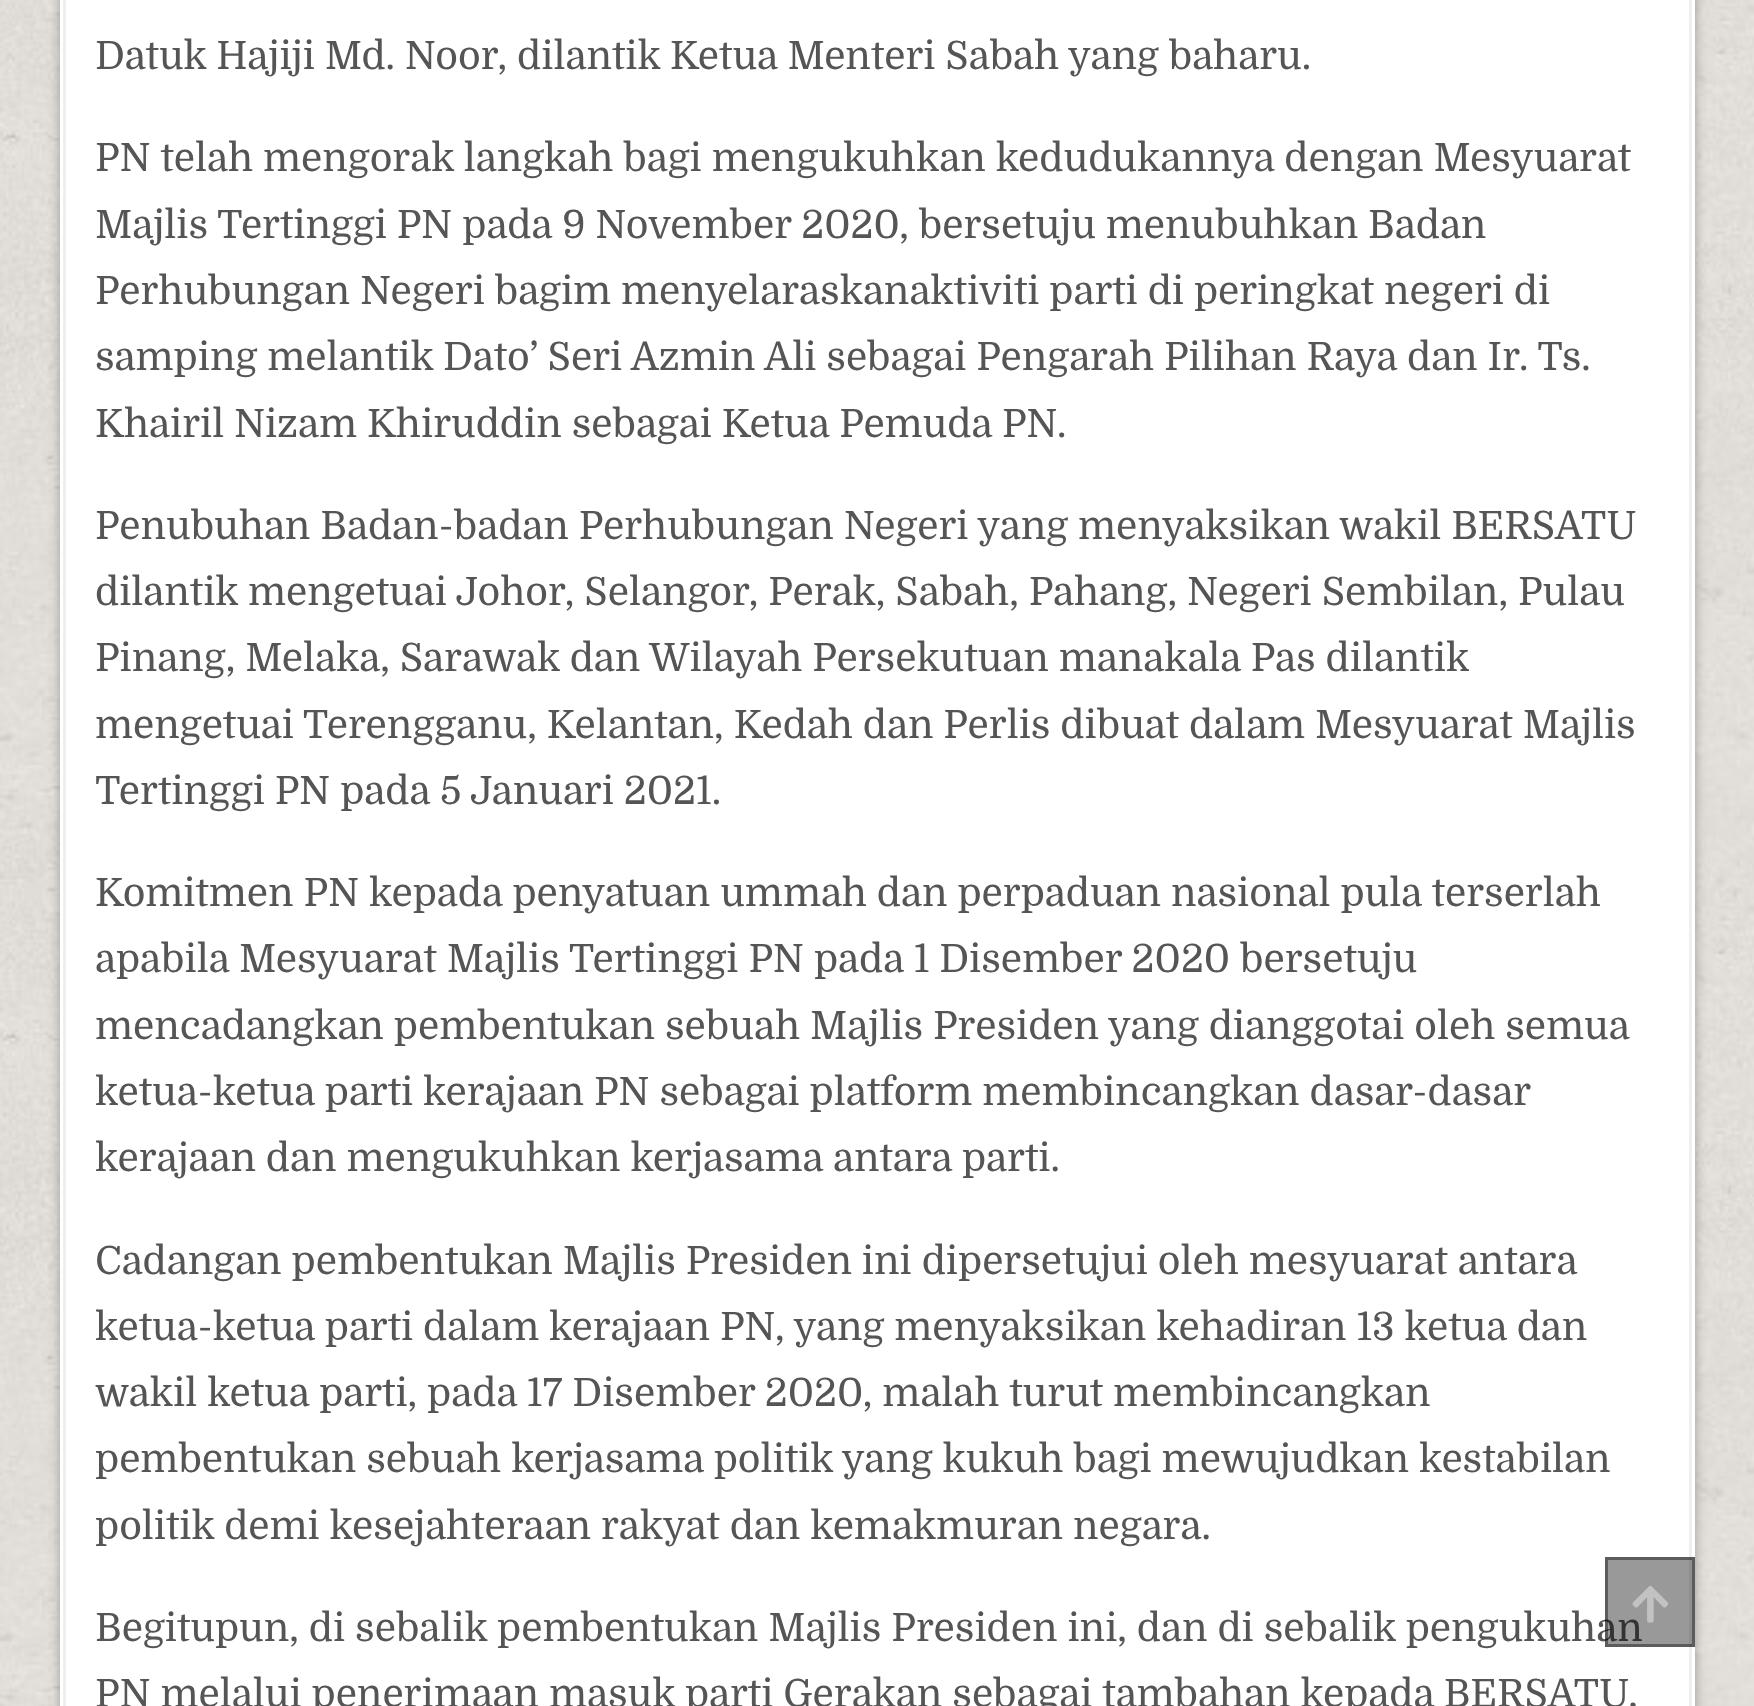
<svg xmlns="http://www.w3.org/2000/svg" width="1754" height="1706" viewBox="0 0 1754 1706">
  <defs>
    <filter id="blur1" x="-50%" y="-200%" width="200%" height="500%"><feGaussianBlur stdDeviation="6"/></filter>
  </defs>
  <rect width="100%" height="100%" fill="#ffffff"/>
  <image x="0" y="0" width="1754" height="1706" href="img1.png"/>
  <rect x="60" y="-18" width="1635" height="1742" fill="#000000" fill-opacity="0.3" filter="url(#blur1)"/>
  <rect x="60" y="0" width="1635" height="1706" fill="#ffffff"/>
  <rect x="64.5" y="-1.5" width="1626" height="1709" fill="none" stroke="#efefef" stroke-width="3"/>
  <text x="95" y="69" font-family="Domine" font-size="39" fill="#555555">Datuk Hajiji Md. Noor, dilantik Ketua Menteri Sabah yang baharu.</text>
  <text x="95" y="171" font-family="Domine" font-size="39" fill="#555555">PN telah mengorak langkah bagi mengukuhkan kedudukannya dengan Mesyuarat</text>
  <text x="95" y="238" font-family="Domine" font-size="39" fill="#555555">Majlis Tertinggi PN pada 9 November 2020, bersetuju menubuhkan Badan</text>
  <text x="95" y="304" font-family="Domine" font-size="39" fill="#555555">Perhubungan Negeri bagim menyelaraskanaktiviti parti di peringkat negeri di</text>
  <text x="95" y="370" font-family="Domine" font-size="39" fill="#555555">samping melantik Dato’ Seri Azmin Ali sebagai Pengarah Pilihan Raya dan Ir. Ts.</text>
  <text x="95" y="437" font-family="Domine" font-size="39" fill="#555555">Khairil Nizam Khiruddin sebagai Ketua Pemuda PN.</text>
  <text x="95" y="539" font-family="Domine" font-size="39" fill="#555555">Penubuhan Badan-badan Perhubungan Negeri yang menyaksikan wakil BERSATU</text>
  <text x="95" y="605" font-family="Domine" font-size="39" fill="#555555">dilantik mengetuai Johor, Selangor, Perak, Sabah, Pahang, Negeri Sembilan, Pulau</text>
  <text x="95" y="671" font-family="Domine" font-size="39" fill="#555555">Pinang, Melaka, Sarawak dan Wilayah Persekutuan manakala Pas dilantik</text>
  <text x="95" y="738" font-family="Domine" font-size="39" fill="#555555">mengetuai Terengganu, Kelantan, Kedah dan Perlis dibuat dalam Mesyuarat Majlis</text>
  <text x="95" y="804" font-family="Domine" font-size="39" fill="#555555">Tertinggi PN pada 5 Januari 2021.</text>
  <text x="95" y="906" font-family="Domine" font-size="39" fill="#555555">Komitmen PN kepada penyatuan ummah dan perpaduan nasional pula terserlah</text>
  <text x="95" y="972" font-family="Domine" font-size="39" fill="#555555">apabila Mesyuarat Majlis Tertinggi PN pada 1 Disember 2020 bersetuju</text>
  <text x="95" y="1039" font-family="Domine" font-size="39" fill="#555555">mencadangkan pembentukan sebuah Majlis Presiden yang dianggotai oleh semua</text>
  <text x="95" y="1105" font-family="Domine" font-size="39" fill="#555555">ketua-ketua parti kerajaan PN sebagai platform membincangkan dasar-dasar</text>
  <text x="95" y="1171" font-family="Domine" font-size="39" fill="#555555">kerajaan dan mengukuhkan kerjasama antara parti.</text>
  <text x="95" y="1274" font-family="Domine" font-size="39" fill="#555555">Cadangan pembentukan Majlis Presiden ini dipersetujui oleh mesyuarat antara</text>
  <text x="95" y="1340" font-family="Domine" font-size="39" fill="#555555">ketua-ketua parti dalam kerajaan PN, yang menyaksikan kehadiran 13 ketua dan</text>
  <text x="95" y="1406" font-family="Domine" font-size="39" fill="#555555">wakil ketua parti, pada 17 Disember 2020, malah turut membincangkan</text>
  <text x="95" y="1472" font-family="Domine" font-size="39" fill="#555555">pembentukan sebuah kerjasama politik yang kukuh bagi mewujudkan kestabilan</text>
  <text x="95" y="1539" font-family="Domine" font-size="39" fill="#555555">politik demi kesejahteraan rakyat dan kemakmuran negara.</text>
  <text x="95" y="1641" font-family="Domine" font-size="39" fill="#555555">Begitupun, di sebalik pembentukan Majlis Presiden ini, dan di sebalik pengukuhan</text>
  <text x="95" y="1707" font-family="Domine" font-size="39" fill="#555555">PN melalui penerimaan masuk parti Gerakan sebagai tambahan kepada BERSATU,</text>
  <rect x="1605" y="1557" width="90" height="90" fill="#000000" fill-opacity="0.4"/>
  <rect x="1606.5" y="1558.5" width="87" height="87" fill="none" stroke="#000000" stroke-opacity="0.4" stroke-width="3"/>
  <image x="1632" y="1586" width="37" height="37" href="img2.png"/>
</svg>
